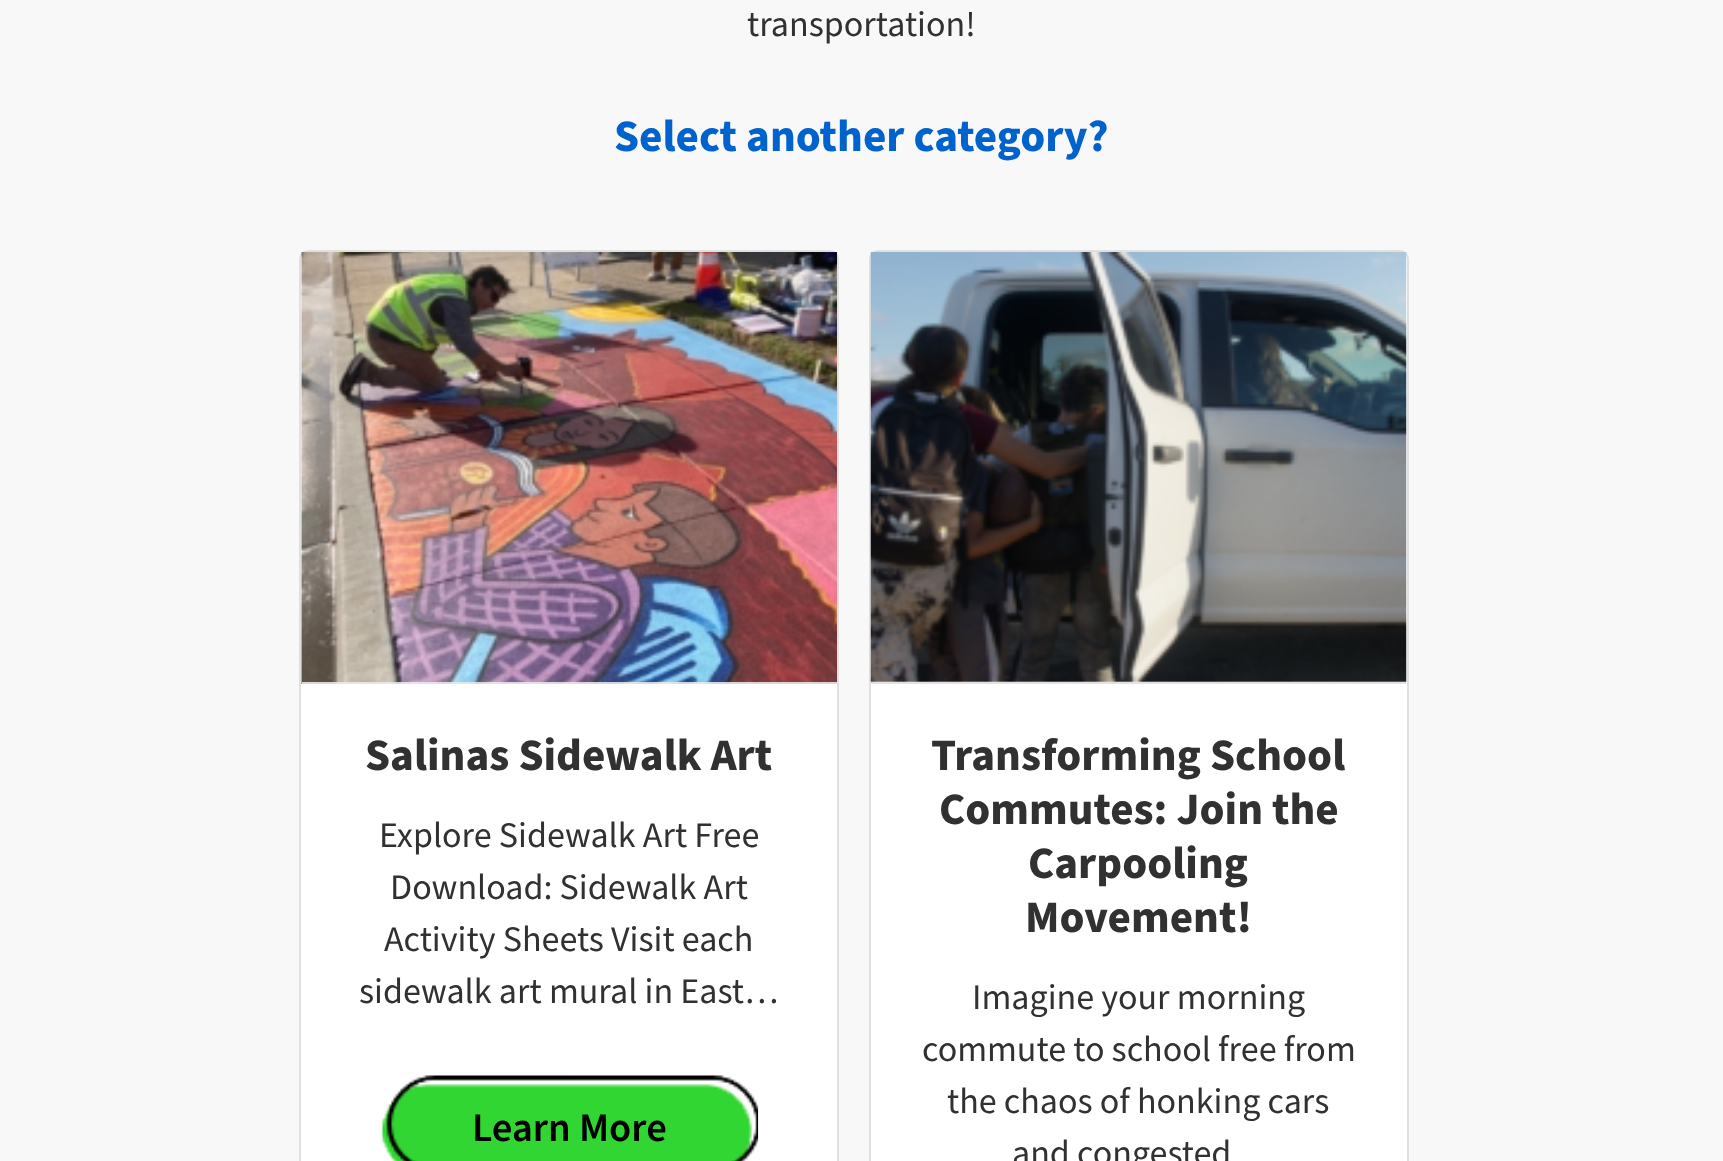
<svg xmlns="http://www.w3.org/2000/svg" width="1723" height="1161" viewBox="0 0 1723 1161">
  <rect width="100%" height="100%" fill="#f8f8f8"/>
  <text x="747" y="36" font-family="Source Sans Pro" font-size="36" fill="#313131">transportation!</text>
  <text x="614" y="151" font-family="Source Sans Pro" font-size="45" font-weight="bold" fill="#0062cc">Select another category?</text>
  <rect x="299" y="250" width="540" height="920" rx="9" fill="#ffffff"/>
  <rect x="300" y="251" width="538" height="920" rx="8" fill="none" stroke="#000000" stroke-opacity="0.12" stroke-width="2"/>
  <image x="301" y="252" width="536" height="432" href="img1.png"/>
  <rect x="302" y="682" width="535" height="2" fill="#ececec" fill-opacity="0.87"/>
  <text x="365" y="770" font-family="Source Sans Pro" font-size="45" font-weight="bold" fill="#313131">Salinas Sidewalk Art</text>
  <text x="379" y="847" font-family="Source Sans Pro" font-size="36" fill="#313131">Explore Sidewalk Art Free</text>
  <text x="390" y="899" font-family="Source Sans Pro" font-size="36" fill="#313131">Download: Sidewalk Art</text>
  <text x="384" y="951" font-family="Source Sans Pro" font-size="36" fill="#313131">Activity Sheets Visit each</text>
  <text x="359" y="1003" font-family="Source Sans Pro" font-size="36" fill="#313131">sidewalk art mural in East…</text>
  <image x="382" y="1075" width="377" height="86" href="img2.png"/>
  <text x="472" y="1141" font-family="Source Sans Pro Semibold" font-size="40.5" font-weight="600" fill="#000000">Learn More</text>
  <rect x="869" y="250" width="540" height="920" rx="9" fill="#ffffff"/>
  <rect x="870" y="251" width="538" height="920" rx="8" fill="none" stroke="#000000" stroke-opacity="0.12" stroke-width="2"/>
  <image x="870" y="252" width="537" height="430" href="img3.png"/>
  <rect x="871" y="682" width="535" height="2" fill="#e2e2e2"/>
  <text x="931" y="770" font-family="Source Sans Pro" font-size="45" font-weight="bold" fill="#313131">Transforming School</text>
  <text x="939" y="824" font-family="Source Sans Pro" font-size="45" font-weight="bold" fill="#313131">Commutes: Join the</text>
  <text x="1028" y="878" font-family="Source Sans Pro" font-size="45" font-weight="bold" fill="#313131">Carpooling</text>
  <text x="1025" y="932" font-family="Source Sans Pro" font-size="45" font-weight="bold" fill="#313131">Movement!</text>
  <text x="972" y="1009" font-family="Source Sans Pro" font-size="36" fill="#313131">Imagine your morning</text>
  <text x="922" y="1061" font-family="Source Sans Pro" font-size="36" fill="#313131">commute to school free from</text>
  <text x="947" y="1113" font-family="Source Sans Pro" font-size="36" fill="#313131">the chaos of honking cars</text>
  <text x="1012" y="1165" font-family="Source Sans Pro" font-size="36" fill="#313131">and congested</text>
</svg>
